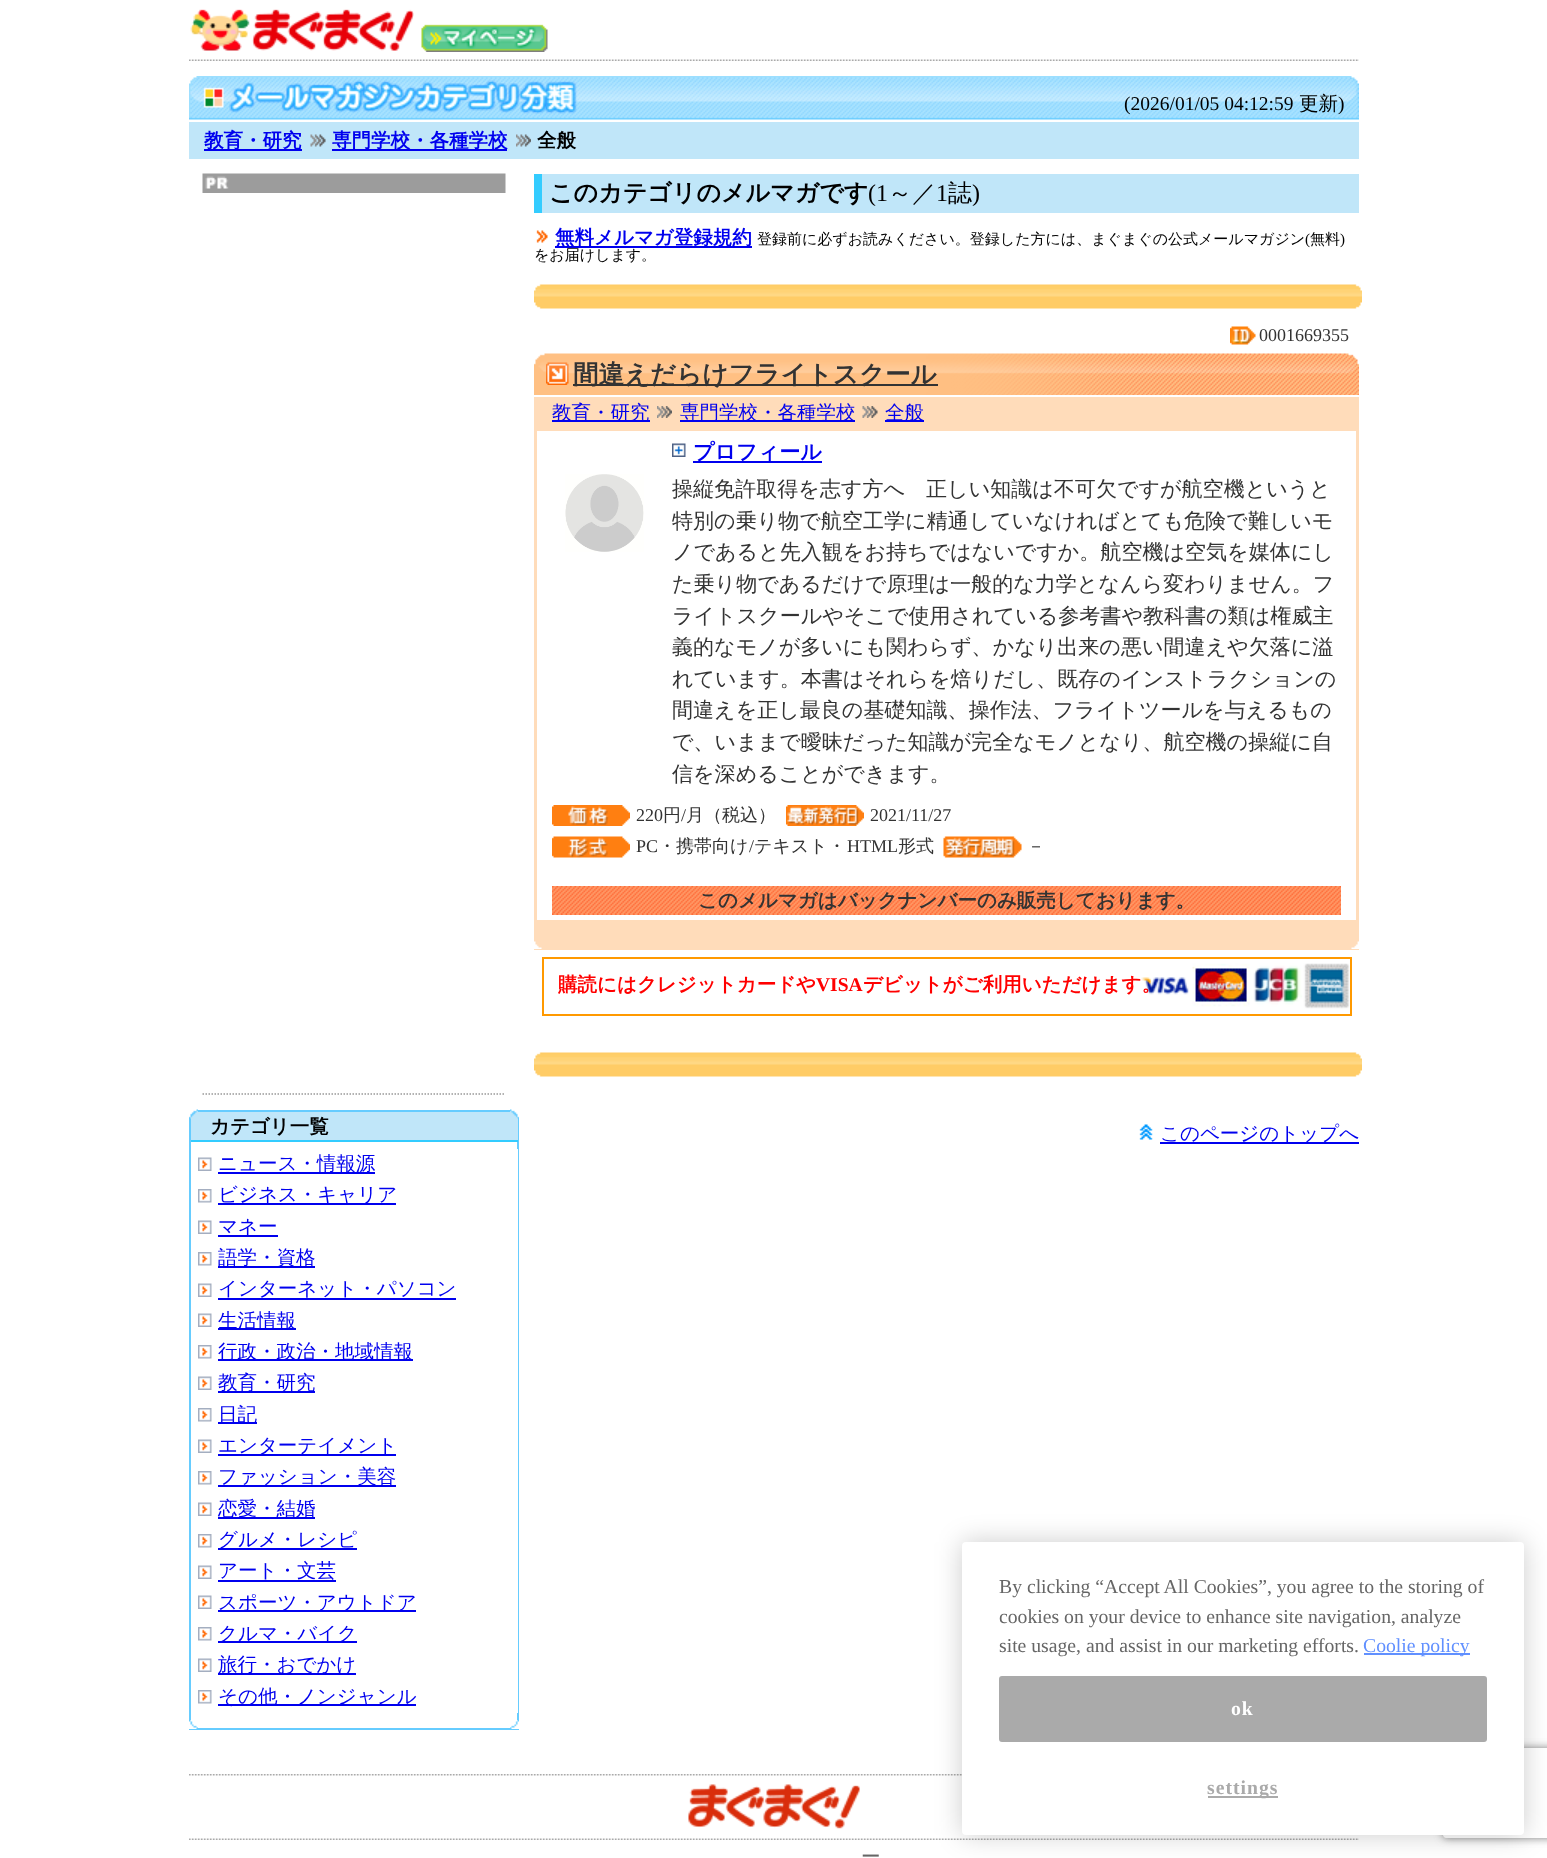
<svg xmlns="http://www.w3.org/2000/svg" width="1547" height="1858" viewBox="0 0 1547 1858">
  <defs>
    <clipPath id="clip1"><path d="M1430 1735H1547V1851H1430ZM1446 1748H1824C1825.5 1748 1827 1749.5 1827 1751V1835C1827 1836.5 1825.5 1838 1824 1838H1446C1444.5 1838 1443 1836.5 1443 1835V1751C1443 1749.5 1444.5 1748 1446 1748Z" clip-rule="evenodd"/></clipPath>
    <filter id="blur1" x="-50%" y="-200%" width="200%" height="500%"><feGaussianBlur stdDeviation="4"/></filter>
    <filter id="blur2" x="-50%" y="-200%" width="200%" height="500%"><feGaussianBlur stdDeviation="13.5"/></filter>
  </defs>
  <rect width="100%" height="100%" fill="#ffffff"/>
  <image x="189" y="59" width="1170" height="2" href="img1.png"/>
  <image x="190" y="9" width="224" height="42" href="img2.png"/>
  <image x="421" y="24" width="127" height="28" href="img3.png"/>
  <image x="189" y="76" width="1170" height="44" href="img4.png"/>
  <text x="1124" y="110" font-family="Liberation Serif" font-size="19.5" fill="#000000">(2026/01/05 04:12:59</text>
  <text x="1299" y="110" font-family="WenQuanYi Zen Hei" font-size="19.5" font-weight="500" fill="#000000">更新</text>
  <text x="1338" y="110" font-family="Liberation Serif" font-size="19.5" fill="#000000">)</text>
  <rect x="189" y="122" width="1170" height="37" fill="#c0e6f9"/>
  <rect x="204" y="149" width="98" height="2" fill="#0000ee"/>
  <text x="204" y="147" font-family="WenQuanYi Zen Hei" font-size="19.5" font-weight="bold" fill="#0000ee">教育・研究</text>
  <image x="310" y="134" width="16" height="13" href="img5.png"/>
  <rect x="332" y="149" width="175" height="2" fill="#0000ee"/>
  <text x="332" y="147" font-family="WenQuanYi Zen Hei" font-size="19.5" font-weight="bold" fill="#0000ee">専門学校・各種学校</text>
  <image x="516" y="134" width="15" height="13" href="img6.png"/>
  <text x="537" y="147" font-family="WenQuanYi Zen Hei" font-size="19.5" font-weight="bold" fill="#000000">全般</text>
  <rect x="542" y="174" width="817" height="39" fill="#c0e6f9"/>
  <rect x="534" y="174" width="8" height="39" fill="#33ccff"/>
  <text x="549" y="201" font-family="WenQuanYi Zen Hei" font-size="24" font-weight="bold" fill="#000000">このカテゴリのメルマガです</text>
  <text x="868" y="201" font-family="Liberation Serif" font-size="24" fill="#000000">(1</text>
  <text x="888" y="201" font-family="WenQuanYi Zen Hei" font-size="24" font-weight="500" fill="#000000">～／</text>
  <text x="936" y="201" font-family="Liberation Serif" font-size="24" fill="#000000">1</text>
  <text x="948" y="201" font-family="WenQuanYi Zen Hei" font-size="24" font-weight="500" fill="#000000">誌</text>
  <text x="972" y="201" font-family="Liberation Serif" font-size="24" fill="#000000">)</text>
  <image x="536" y="230" width="12" height="13" href="img7.png"/>
  <rect x="555" y="246" width="197" height="2" fill="#0000ee"/>
  <text x="555" y="244" font-family="WenQuanYi Zen Hei" font-size="19.5" font-weight="bold" fill="#0000ee">無料メルマガ登録規約</text>
  <text x="757" y="244" font-family="WenQuanYi Zen Hei" font-size="15" font-weight="500" fill="#000000">登録前に必ずお読みください。登録した方には、まぐまぐの公式メールマガジン</text>
  <text x="1305" y="244" font-family="Liberation Serif" font-size="15" fill="#000000">(</text>
  <text x="1310" y="244" font-family="WenQuanYi Zen Hei" font-size="15" font-weight="500" fill="#000000">無料</text>
  <text x="1340" y="244" font-family="Liberation Serif" font-size="15" fill="#000000">)</text>
  <text x="534" y="260" font-family="WenQuanYi Zen Hei" font-size="15" font-weight="500" fill="#000000">をお届けします。</text>
  <image x="534" y="284" width="828" height="25" href="img8.png"/>
  <rect x="1356" y="396" width="3" height="524" fill="#ffdcba"/>
  <rect x="534" y="396" width="3" height="524" fill="#ffdcba"/>
  <image x="1230" y="326" width="26" height="19" href="img9.png"/>
  <text x="1259" y="341" font-family="Liberation Serif" font-size="18" fill="#333333">0001669355</text>
  <image x="552" y="805" width="78" height="21" href="img10.png"/>
  <text x="636" y="821" font-family="Liberation Serif" font-size="18" fill="#333333">220</text>
  <text x="663" y="821" font-family="WenQuanYi Zen Hei" font-size="18" font-weight="500" fill="#333333">円</text>
  <text x="681" y="821" font-family="Liberation Serif" font-size="18" fill="#333333">/</text>
  <text x="686" y="821" font-family="WenQuanYi Zen Hei" font-size="18" font-weight="500" fill="#333333">月（税込）</text>
  <image x="786" y="805" width="78" height="21" href="img11.png"/>
  <text x="870" y="821" font-family="Liberation Serif" font-size="18" fill="#333333">2021/11/27</text>
  <image x="552" y="836" width="78" height="22" href="img12.png"/>
  <text x="636" y="852" font-family="Liberation Serif" font-size="18" fill="#333333">PC</text>
  <text x="658" y="852" font-family="WenQuanYi Zen Hei" font-size="18" font-weight="500" fill="#333333">・携帯向け</text>
  <text x="749" y="852" font-family="Liberation Serif" font-size="18" fill="#333333">/</text>
  <text x="754" y="852" font-family="WenQuanYi Zen Hei" font-size="18" font-weight="500" fill="#333333">テキスト・</text>
  <text x="847" y="852" font-family="Liberation Serif" font-size="18" fill="#333333">HTML</text>
  <text x="898" y="852" font-family="WenQuanYi Zen Hei" font-size="18" font-weight="500" fill="#333333">形式</text>
  <image x="943" y="836" width="79" height="22" href="img13.png"/>
  <text x="1027" y="852" font-family="WenQuanYi Zen Hei" font-size="18" font-weight="500" fill="#333333">－</text>
  <rect x="537" y="397" width="819" height="34" fill="#ffdcba"/>
  <rect x="552" y="420" width="98" height="2" fill="#0000ee"/>
  <text x="552" y="419" font-family="WenQuanYi Zen Hei" font-size="19.5" font-weight="500" fill="#0000ee">教育・研究</text>
  <image x="657" y="406" width="15" height="12" href="img14.png"/>
  <rect x="680" y="420" width="175" height="2" fill="#0000ee"/>
  <text x="680" y="419" font-family="WenQuanYi Zen Hei" font-size="19.5" font-weight="500" fill="#0000ee">専門学校・各種学校</text>
  <image x="862" y="406" width="16" height="12" href="img15.png"/>
  <rect x="885" y="420" width="39" height="2" fill="#0000ee"/>
  <text x="885" y="419" font-family="WenQuanYi Zen Hei" font-size="19.5" font-weight="500" fill="#0000ee">全般</text>
  <image x="672" y="443" width="14" height="14" href="img16.png"/>
  <rect x="693" y="461" width="129" height="2" fill="#0000ee"/>
  <text x="693" y="459" font-family="WenQuanYi Zen Hei" font-size="21.05" font-weight="bold" fill="#0000ee">プロフィール</text>
  <image x="565" y="474" width="79" height="78" href="img17.png"/>
  <text x="672" y="496" font-family="WenQuanYi Zen Hei" font-size="21.05" font-weight="500" fill="#333333">操縦免許取得を志す方へ　正しい知識は不可欠ですが航空機というと</text>
  <text x="672" y="528" font-family="WenQuanYi Zen Hei" font-size="21.05" font-weight="500" fill="#333333">特別の乗り物で航空工学に精通していなければとても危険で難しいモ</text>
  <text x="672" y="559" font-family="WenQuanYi Zen Hei" font-size="21.05" font-weight="500" fill="#333333">ノであると先入観をお持ちではないですか。航空機は空気を媒体にし</text>
  <text x="672" y="591" font-family="WenQuanYi Zen Hei" font-size="21.05" font-weight="500" fill="#333333">た乗り物であるだけで原理は一般的な力学となんら変わりません。フ</text>
  <text x="672" y="623" font-family="WenQuanYi Zen Hei" font-size="21.05" font-weight="500" fill="#333333">ライトスクールやそこで使用されている参考書や教科書の類は権威主</text>
  <text x="672" y="654" font-family="WenQuanYi Zen Hei" font-size="21.05" font-weight="500" fill="#333333">義的なモノが多いにも関わらず、かなり出来の悪い間違えや欠落に溢</text>
  <text x="672" y="686" font-family="WenQuanYi Zen Hei" font-size="21.05" font-weight="500" fill="#333333">れています。本書はそれらを焙りだし、既存のインストラクションの</text>
  <text x="672" y="717" font-family="WenQuanYi Zen Hei" font-size="21.05" font-weight="500" fill="#333333">間違えを正し最良の基礎知識、操作法、フライトツールを与えるもの</text>
  <text x="672" y="749" font-family="WenQuanYi Zen Hei" font-size="21.05" font-weight="500" fill="#333333">で、いままで曖昧だった知識が完全なモノとなり、航空機の操縦に自</text>
  <text x="672" y="781" font-family="WenQuanYi Zen Hei" font-size="21.05" font-weight="500" fill="#333333">信を深めることができます。</text>
  <image x="552" y="886" width="789" height="29" href="img18.png"/>
  <text x="698" y="907" font-family="WenQuanYi Zen Hei" font-size="19.5" font-weight="bold" fill="#333333">このメルマガはバックナンバーのみ販売しております。</text>
  <image x="534" y="353" width="825" height="42" href="img19.png"/>
  <rect x="534" y="396" width="825" height="1" fill="#ffffff"/>
  <image x="546" y="362" width="23" height="23" href="img20.png"/>
  <rect x="573" y="384" width="365" height="2" fill="#333333"/>
  <text x="573" y="383" font-family="WenQuanYi Zen Hei" font-size="25.5" font-weight="bold" fill="#333333">間違えだらけフライトスクール</text>
  <rect x="534" y="920" width="825" height="30" fill="#ffdcba"/>
  <image x="534" y="941" width="8" height="8" href="img21.png"/>
  <image x="1351" y="941" width="8" height="8" href="img22.png"/>
  <image x="1141" y="963" width="209" height="46" href="img23.png"/>
  <rect x="543" y="958" width="808" height="57" fill="none" stroke="#ff9900" stroke-width="2"/>
  <text x="558" y="991" font-family="WenQuanYi Zen Hei" font-size="19.5" font-weight="bold" fill="#ff0000">購読にはクレジットカードや</text>
  <text x="816" y="991" font-family="Liberation Serif" font-size="19.5" font-weight="bold" fill="#ff0000">VISA</text>
  <text x="863" y="991" font-family="WenQuanYi Zen Hei" font-size="19.5" font-weight="bold" fill="#ff0000">デビットがご利用いただけます。</text>
  <image x="534" y="1052" width="828" height="25" href="img8.png"/>
  <image x="1139" y="1124" width="14" height="16" href="img24.png"/>
  <rect x="1160" y="1142" width="199" height="2" fill="#0000ee"/>
  <text x="1160" y="1140" font-family="WenQuanYi Zen Hei" font-size="19.5" font-weight="500" fill="#0000ee">このページのトップへ</text>
  <image x="202" y="173" width="304" height="20" href="img25.png"/>
  <path d="M202.5 1094H505.5" fill="none" stroke="#999999" stroke-width="1.5" stroke-dasharray="1.5 1.5"/>
  <rect x="190" y="1111" width="328" height="618" fill="none" stroke="#66ccff" stroke-width="2"/>
  <rect x="191" y="1112" width="327" height="28" fill="#c0e6f9"/>
  <image x="189" y="1109" width="9" height="10" href="img26.png"/>
  <image x="510" y="1109" width="9" height="10" href="img27.png"/>
  <rect x="191" y="1140" width="327" height="2" fill="#33ccff"/>
  <text x="210" y="1133" font-family="WenQuanYi Zen Hei" font-size="19.5" font-weight="bold" fill="#000000">カテゴリ一覧</text>
  <rect x="517" y="1149" width="1" height="564" fill="#ffffff"/>
  <image x="198" y="1157" width="14" height="14" href="img28.png"/>
  <rect x="218" y="1172" width="157" height="2" fill="#0000ee"/>
  <text x="218" y="1170" font-family="WenQuanYi Zen Hei" font-size="19.5" font-weight="500" fill="#0000ee">ニュース・情報源</text>
  <image x="198" y="1189" width="14" height="14" href="img29.png"/>
  <rect x="218" y="1203" width="178" height="2" fill="#0000ee"/>
  <text x="218" y="1201" font-family="WenQuanYi Zen Hei" font-size="19.5" font-weight="500" fill="#0000ee">ビジネス・キャリア</text>
  <image x="198" y="1220" width="14" height="14" href="img28.png"/>
  <rect x="218" y="1235" width="60" height="2" fill="#0000ee"/>
  <text x="218" y="1233" font-family="WenQuanYi Zen Hei" font-size="19.5" font-weight="500" fill="#0000ee">マネー</text>
  <image x="198" y="1252" width="14" height="14" href="img29.png"/>
  <rect x="218" y="1266" width="97" height="2" fill="#0000ee"/>
  <text x="218" y="1264" font-family="WenQuanYi Zen Hei" font-size="19.5" font-weight="500" fill="#0000ee">語学・資格</text>
  <image x="198" y="1283" width="14" height="14" href="img28.png"/>
  <text x="218" y="1295" font-family="WenQuanYi Zen Hei" font-size="19.5" font-weight="500" fill="#0000ee">インターネット・パソコン</text>
  <rect x="218" y="1298" width="238" height="2" fill="#0000ee"/>
  <image x="198" y="1313" width="14" height="14" href="img28.png"/>
  <rect x="218" y="1328" width="78" height="2" fill="#0000ee"/>
  <text x="218" y="1327" font-family="WenQuanYi Zen Hei" font-size="19.5" font-weight="500" fill="#0000ee">生活情報</text>
  <image x="198" y="1345" width="14" height="14" href="img29.png"/>
  <rect x="218" y="1359" width="195" height="2" fill="#0000ee"/>
  <text x="218" y="1358" font-family="WenQuanYi Zen Hei" font-size="19.5" font-weight="500" fill="#0000ee">行政・政治・地域情報</text>
  <image x="198" y="1376" width="14" height="14" href="img28.png"/>
  <rect x="218" y="1391" width="97" height="2" fill="#0000ee"/>
  <text x="218" y="1389" font-family="WenQuanYi Zen Hei" font-size="19.5" font-weight="500" fill="#0000ee">教育・研究</text>
  <image x="198" y="1408" width="14" height="14" href="img29.png"/>
  <rect x="218" y="1422" width="39" height="2" fill="#0000ee"/>
  <text x="218" y="1421" font-family="WenQuanYi Zen Hei" font-size="19.5" font-weight="500" fill="#0000ee">日記</text>
  <image x="198" y="1439" width="14" height="14" href="img28.png"/>
  <rect x="218" y="1454" width="178" height="2" fill="#0000ee"/>
  <text x="218" y="1452" font-family="WenQuanYi Zen Hei" font-size="19.5" font-weight="500" fill="#0000ee">エンターテイメント</text>
  <image x="198" y="1471" width="14" height="14" href="img29.png"/>
  <rect x="218" y="1485" width="178" height="2" fill="#0000ee"/>
  <text x="218" y="1483" font-family="WenQuanYi Zen Hei" font-size="19.5" font-weight="500" fill="#0000ee">ファッション・美容</text>
  <image x="198" y="1502" width="14" height="14" href="img28.png"/>
  <rect x="218" y="1517" width="97" height="2" fill="#0000ee"/>
  <text x="218" y="1515" font-family="WenQuanYi Zen Hei" font-size="19.5" font-weight="500" fill="#0000ee">恋愛・結婚</text>
  <image x="198" y="1534" width="14" height="14" href="img29.png"/>
  <rect x="218" y="1548" width="139" height="2" fill="#0000ee"/>
  <text x="218" y="1546" font-family="WenQuanYi Zen Hei" font-size="19.5" font-weight="500" fill="#0000ee">グルメ・レシピ</text>
  <image x="198" y="1565" width="14" height="14" href="img28.png"/>
  <text x="218" y="1577" font-family="WenQuanYi Zen Hei" font-size="19.5" font-weight="500" fill="#0000ee">アート・文芸</text>
  <rect x="218" y="1580" width="118" height="2" fill="#0000ee"/>
  <image x="198" y="1595" width="14" height="14" href="img28.png"/>
  <rect x="218" y="1610" width="198" height="2" fill="#0000ee"/>
  <text x="218" y="1609" font-family="WenQuanYi Zen Hei" font-size="19.5" font-weight="500" fill="#0000ee">スポーツ・アウトドア</text>
  <image x="198" y="1627" width="14" height="14" href="img29.png"/>
  <rect x="218" y="1641" width="139" height="2" fill="#0000ee"/>
  <text x="218" y="1640" font-family="WenQuanYi Zen Hei" font-size="19.5" font-weight="500" fill="#0000ee">クルマ・バイク</text>
  <image x="198" y="1658" width="14" height="14" href="img28.png"/>
  <rect x="218" y="1673" width="138" height="2" fill="#0000ee"/>
  <text x="218" y="1671" font-family="WenQuanYi Zen Hei" font-size="19.5" font-weight="500" fill="#0000ee">旅行・おでかけ</text>
  <image x="198" y="1690" width="14" height="14" href="img29.png"/>
  <rect x="218" y="1704" width="198" height="2" fill="#0000ee"/>
  <text x="218" y="1703" font-family="WenQuanYi Zen Hei" font-size="19.5" font-weight="500" fill="#0000ee">その他・ノンジャンル</text>
  <image x="189" y="1720" width="9" height="9" href="img30.png"/>
  <image x="510" y="1720" width="9" height="9" href="img31.png"/>
  <g clip-path="url(#clip1)">
    <rect x="1443" y="1748" width="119" height="90" rx="3" fill="#808080" filter="url(#blur1)"/>
  </g>
  <image x="189" y="1774" width="773" height="2" href="img32.png"/>
  <image x="688" y="1784" width="172" height="45" href="img33.png"/>
  <image x="189" y="1838" width="1170" height="2" href="img1.png"/>
  <text x="861" y="1863" font-family="WenQuanYi Zen Hei" font-size="19.5" font-weight="500" fill="#666666">ー</text>
  <rect x="962" y="1542" width="562" height="293" rx="4" fill="#000000" fill-opacity="0.2" filter="url(#blur2)"/>
  <rect x="962" y="1542" width="562" height="293" rx="4" fill="#ffffff"/>
  <text x="999" y="1593" font-family="Liberation Serif" font-size="19.7" fill="#666666">By clicking “Accept All Cookies”, you agree to the storing of</text>
  <text x="999" y="1623" font-family="Liberation Serif" font-size="19.7" fill="#666666">cookies on your device to enhance site navigation, analyze</text>
  <text x="999" y="1652" font-family="Liberation Serif" font-size="19.7" fill="#666666">site usage, and assist in our marketing efforts.</text>
  <rect x="1364" y="1653" width="106" height="2" fill="#6190ff"/>
  <text x="1363" y="1652" font-family="Liberation Serif" font-size="19.7" fill="#6190ff">Coolie policy</text>
  <rect x="1000" y="1677" width="486" height="64" rx="2" fill="#aaaaaa" stroke="#aaaaaa" stroke-width="2"/>
  <text x="1231" y="1715" font-family="Liberation Serif" font-size="19.7" font-weight="bold" letter-spacing="1" fill="#ffffff">ok</text>
  <rect x="1208" y="1796" width="70" height="2" fill="#aaaaaa"/>
  <text x="1207" y="1794" font-family="Liberation Serif" font-size="19.7" font-weight="bold" letter-spacing="1" fill="#aaaaaa">settings</text>
</svg>
